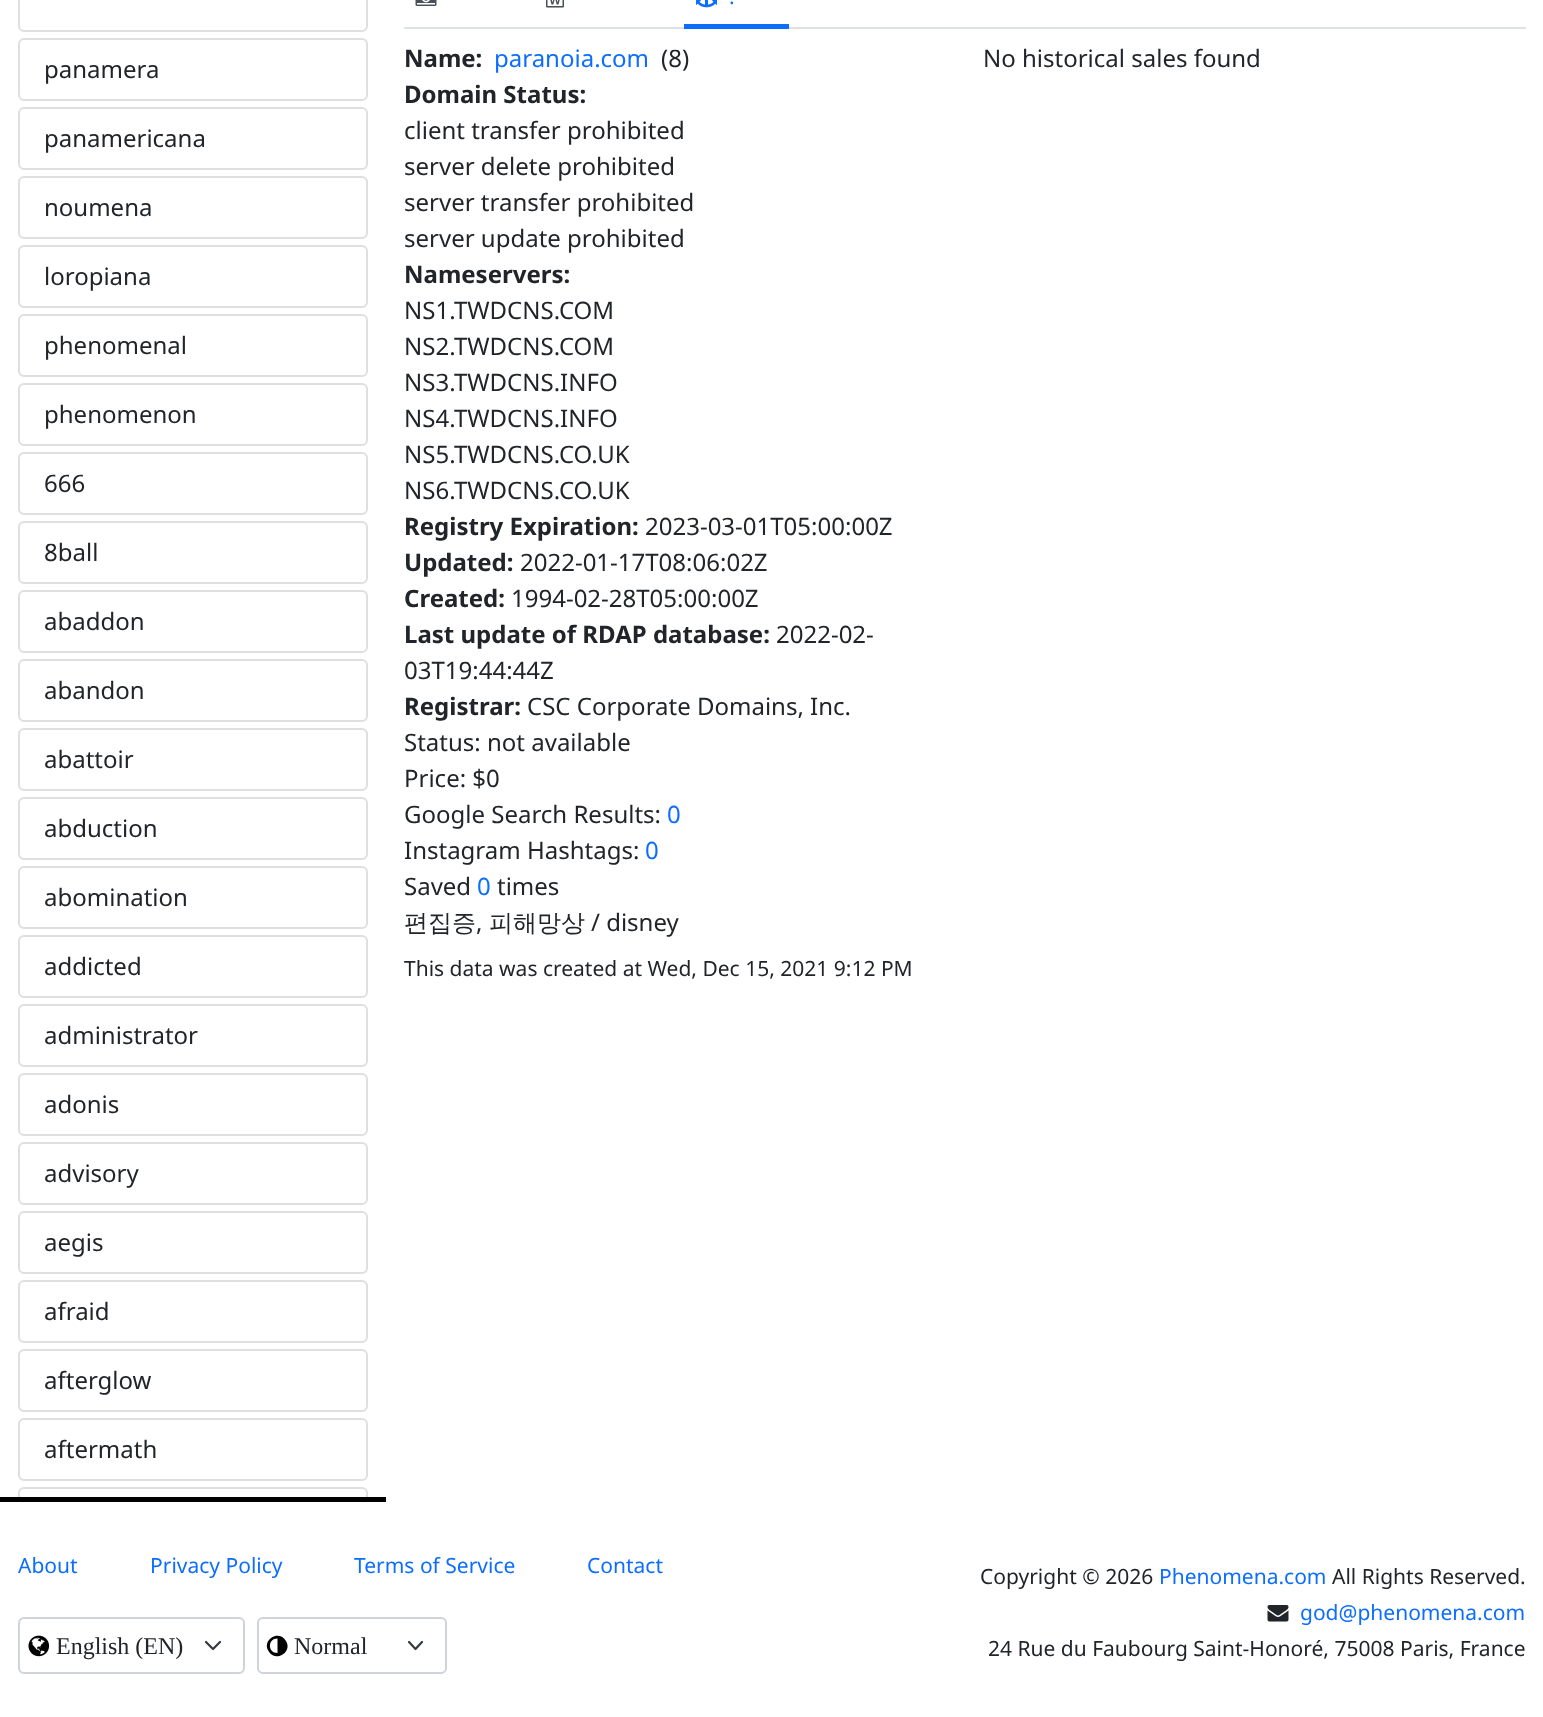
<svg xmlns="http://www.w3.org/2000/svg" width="1543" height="1717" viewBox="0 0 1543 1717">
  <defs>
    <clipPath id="clip1"><rect x="0" y="0" width="386" height="1497"/></clipPath>
  </defs>
  <rect width="100%" height="100%" fill="#ffffff"/>
  <rect x="0" y="1497" width="386" height="5" fill="#000000"/>
  <rect x="19" y="-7" width="348" height="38" rx="5" fill="none" stroke="#dfdfdf" stroke-width="2"/>
  <rect x="19" y="39" width="348" height="61" rx="5" fill="none" stroke="#dfdfdf" stroke-width="2"/>
  <text x="44" y="78" font-family="Noto Sans" font-size="24" fill="#212529">panamera</text>
  <rect x="19" y="108" width="348" height="61" rx="5" fill="none" stroke="#dfdfdf" stroke-width="2"/>
  <text x="44" y="147" font-family="Noto Sans" font-size="24" fill="#212529">panamericana</text>
  <rect x="19" y="177" width="348" height="61" rx="5" fill="none" stroke="#dfdfdf" stroke-width="2"/>
  <text x="44" y="216" font-family="Noto Sans" font-size="24" fill="#212529">noumena</text>
  <rect x="19" y="246" width="348" height="61" rx="5" fill="none" stroke="#dfdfdf" stroke-width="2"/>
  <text x="44" y="285" font-family="Noto Sans" font-size="24" fill="#212529">loropiana</text>
  <rect x="19" y="315" width="348" height="61" rx="5" fill="none" stroke="#dfdfdf" stroke-width="2"/>
  <text x="44" y="354" font-family="Noto Sans" font-size="24" fill="#212529">phenomenal</text>
  <rect x="19" y="384" width="348" height="61" rx="5" fill="none" stroke="#dfdfdf" stroke-width="2"/>
  <text x="44" y="423" font-family="Noto Sans" font-size="24" fill="#212529">phenomenon</text>
  <rect x="19" y="453" width="348" height="61" rx="5" fill="none" stroke="#dfdfdf" stroke-width="2"/>
  <text x="44" y="492" font-family="Noto Sans" font-size="24" fill="#212529">666</text>
  <rect x="19" y="522" width="348" height="61" rx="5" fill="none" stroke="#dfdfdf" stroke-width="2"/>
  <text x="44" y="561" font-family="Noto Sans" font-size="24" fill="#212529">8ball</text>
  <rect x="19" y="591" width="348" height="61" rx="5" fill="none" stroke="#dfdfdf" stroke-width="2"/>
  <text x="44" y="630" font-family="Noto Sans" font-size="24" fill="#212529">abaddon</text>
  <rect x="19" y="660" width="348" height="61" rx="5" fill="none" stroke="#dfdfdf" stroke-width="2"/>
  <text x="44" y="699" font-family="Noto Sans" font-size="24" fill="#212529">abandon</text>
  <rect x="19" y="729" width="348" height="61" rx="5" fill="none" stroke="#dfdfdf" stroke-width="2"/>
  <text x="44" y="768" font-family="Noto Sans" font-size="24" fill="#212529">abattoir</text>
  <rect x="19" y="798" width="348" height="61" rx="5" fill="none" stroke="#dfdfdf" stroke-width="2"/>
  <text x="44" y="837" font-family="Noto Sans" font-size="24" fill="#212529">abduction</text>
  <rect x="19" y="867" width="348" height="61" rx="5" fill="none" stroke="#dfdfdf" stroke-width="2"/>
  <text x="44" y="906" font-family="Noto Sans" font-size="24" fill="#212529">abomination</text>
  <rect x="19" y="936" width="348" height="61" rx="5" fill="none" stroke="#dfdfdf" stroke-width="2"/>
  <text x="44" y="975" font-family="Noto Sans" font-size="24" fill="#212529">addicted</text>
  <rect x="19" y="1005" width="348" height="61" rx="5" fill="none" stroke="#dfdfdf" stroke-width="2"/>
  <text x="44" y="1044" font-family="Noto Sans" font-size="24" fill="#212529">administrator</text>
  <rect x="19" y="1074" width="348" height="61" rx="5" fill="none" stroke="#dfdfdf" stroke-width="2"/>
  <text x="44" y="1113" font-family="Noto Sans" font-size="24" fill="#212529">adonis</text>
  <rect x="19" y="1143" width="348" height="61" rx="5" fill="none" stroke="#dfdfdf" stroke-width="2"/>
  <text x="44" y="1182" font-family="Noto Sans" font-size="24" fill="#212529">advisory</text>
  <rect x="19" y="1212" width="348" height="61" rx="5" fill="none" stroke="#dfdfdf" stroke-width="2"/>
  <text x="44" y="1251" font-family="Noto Sans" font-size="24" fill="#212529">aegis</text>
  <rect x="19" y="1281" width="348" height="61" rx="5" fill="none" stroke="#dfdfdf" stroke-width="2"/>
  <text x="44" y="1320" font-family="Noto Sans" font-size="24" fill="#212529">afraid</text>
  <rect x="19" y="1350" width="348" height="61" rx="5" fill="none" stroke="#dfdfdf" stroke-width="2"/>
  <text x="44" y="1389" font-family="Noto Sans" font-size="24" fill="#212529">afterglow</text>
  <rect x="19" y="1419" width="348" height="61" rx="5" fill="none" stroke="#dfdfdf" stroke-width="2"/>
  <text x="44" y="1458" font-family="Noto Sans" font-size="24" fill="#212529">aftermath</text>
  <g clip-path="url(#clip1)">
    <rect x="19" y="1488" width="348" height="61" rx="5" fill="none" stroke="#dfdfdf" stroke-width="2"/>
  </g>
  <rect x="404" y="27" width="1122" height="2" fill="#dee2e6"/>
  <image x="415" y="0" width="22" height="6" href="img1.png"/>
  <image x="546" y="0" width="18" height="8" href="img2.png"/>
  <rect x="684" y="24" width="105" height="5" fill="#0d6efd"/>
  <image x="696" y="0" width="21" height="8" href="img3.png"/>
  <text x="729" y="4" font-family="Noto Sans" font-size="21" fill="#0d6efd">.</text>
  <text x="404" y="67" font-family="Noto Sans" font-size="24" font-weight="bold" fill="#212529">Name:</text>
  <text x="494" y="67" font-family="Noto Sans" font-size="24" fill="#0d6efd">paranoia.com</text>
  <text x="661" y="67" font-family="Noto Sans" font-size="24" fill="#212529">(8)</text>
  <text x="404" y="103" font-family="Noto Sans" font-size="24" font-weight="bold" fill="#212529">Domain Status:</text>
  <text x="404" y="139" font-family="Noto Sans" font-size="24" fill="#212529">client transfer prohibited</text>
  <text x="404" y="175" font-family="Noto Sans" font-size="24" fill="#212529">server delete prohibited</text>
  <text x="404" y="211" font-family="Noto Sans" font-size="24" fill="#212529">server transfer prohibited</text>
  <text x="404" y="247" font-family="Noto Sans" font-size="24" fill="#212529">server update prohibited</text>
  <text x="404" y="283" font-family="Noto Sans" font-size="24" font-weight="bold" fill="#212529">Nameservers:</text>
  <text x="404" y="319" font-family="Noto Sans" font-size="24" fill="#212529">NS1.TWDCNS.COM</text>
  <text x="404" y="355" font-family="Noto Sans" font-size="24" fill="#212529">NS2.TWDCNS.COM</text>
  <text x="404" y="391" font-family="Noto Sans" font-size="24" fill="#212529">NS3.TWDCNS.INFO</text>
  <text x="404" y="427" font-family="Noto Sans" font-size="24" fill="#212529">NS4.TWDCNS.INFO</text>
  <text x="404" y="463" font-family="Noto Sans" font-size="24" fill="#212529">NS5.TWDCNS.CO.UK</text>
  <text x="404" y="499" font-family="Noto Sans" font-size="24" fill="#212529">NS6.TWDCNS.CO.UK</text>
  <text x="404" y="535" font-family="Noto Sans" font-size="24" font-weight="bold" fill="#212529">Registry Expiration:</text>
  <text x="645" y="535" font-family="Noto Sans" font-size="24" fill="#212529">2023-03-01T05:00:00Z</text>
  <text x="404" y="571" font-family="Noto Sans" font-size="24" font-weight="bold" fill="#212529">Updated:</text>
  <text x="520" y="571" font-family="Noto Sans" font-size="24" fill="#212529">2022-01-17T08:06:02Z</text>
  <text x="404" y="607" font-family="Noto Sans" font-size="24" font-weight="bold" fill="#212529">Created:</text>
  <text x="511" y="607" font-family="Noto Sans" font-size="24" fill="#212529">1994-02-28T05:00:00Z</text>
  <text x="404" y="643" font-family="Noto Sans" font-size="24" font-weight="bold" fill="#212529">Last update of RDAP database:</text>
  <text x="776" y="643" font-family="Noto Sans" font-size="24" fill="#212529">2022-02-</text>
  <text x="404" y="679" font-family="Noto Sans" font-size="24" fill="#212529">03T19:44:44Z</text>
  <text x="404" y="715" font-family="Noto Sans" font-size="24" font-weight="bold" fill="#212529">Registrar:</text>
  <text x="527" y="715" font-family="Noto Sans" font-size="24" fill="#212529">CSC Corporate Domains, Inc.</text>
  <text x="404" y="751" font-family="Noto Sans" font-size="24" fill="#212529">Status: not available</text>
  <text x="404" y="787" font-family="Noto Sans" font-size="24" fill="#212529">Price: $0</text>
  <text x="404" y="823" font-family="Noto Sans" font-size="24" fill="#212529">Google Search Results:</text>
  <text x="667" y="823" font-family="Noto Sans" font-size="24" fill="#0d6efd">0</text>
  <text x="404" y="859" font-family="Noto Sans" font-size="24" fill="#212529">Instagram Hashtags:</text>
  <text x="645" y="859" font-family="Noto Sans" font-size="24" fill="#0d6efd">0</text>
  <text x="404" y="895" font-family="Noto Sans" font-size="24" fill="#212529">Saved</text>
  <text x="477" y="895" font-family="Noto Sans" font-size="24" fill="#0d6efd">0</text>
  <text x="497" y="895" font-family="Noto Sans" font-size="24" fill="#212529">times</text>
  <text x="404" y="931" font-family="WenQuanYi Zen Hei" font-size="24" font-weight="500" fill="#212529">편집증</text>
  <text x="476" y="931" font-family="Noto Sans" font-size="24" fill="#212529">,</text>
  <text x="489" y="931" font-family="WenQuanYi Zen Hei" font-size="24" font-weight="500" fill="#212529">피해망상</text>
  <text x="591" y="931" font-family="Noto Sans" font-size="24" fill="#212529">/ disney</text>
  <text x="404" y="976" font-family="Noto Sans" font-size="21" fill="#212529">This data was created at Wed, Dec 15, 2021 9:12 PM</text>
  <text x="983" y="67" font-family="Noto Sans" font-size="24" fill="#212529">No historical sales found</text>
  <text x="18" y="1573" font-family="Noto Sans" font-size="21" fill="#0d6efd">About</text>
  <text x="150" y="1573" font-family="Noto Sans" font-size="21" fill="#0d6efd">Privacy Policy</text>
  <text x="354" y="1573" font-family="Noto Sans" font-size="21" fill="#0d6efd">Terms of Service</text>
  <text x="587" y="1573" font-family="Noto Sans" font-size="21" fill="#0d6efd">Contact</text>
  <path d="M206 1642L213 1649L220 1642" fill="none" stroke="#343a40" stroke-width="2.2" stroke-linecap="round" stroke-linejoin="round"/>
  <rect x="19" y="1618" width="225" height="55" rx="5" fill="none" stroke="#ced4da" stroke-width="2"/>
  <image x="28" y="1635" width="22" height="22" href="img4.png"/>
  <text x="56" y="1654" font-family="Liberation Serif" font-size="24" fill="#212529">English (EN)</text>
  <path d="M409 1642L415.5 1649L422 1642" fill="none" stroke="#343a40" stroke-width="2.2" stroke-linecap="round" stroke-linejoin="round"/>
  <rect x="258" y="1618" width="188" height="55" rx="5" fill="none" stroke="#ced4da" stroke-width="2"/>
  <path d="M277.5 1653V1638.5C267.5 1638.5 267.5 1653 277.5 1653ZM286 1641C293 1652.5 275 1663 268.5 1651C261.5 1639.5 279.5 1629 286 1641Z" fill="#020202"/>
  <text x="294" y="1654" font-family="Liberation Serif" font-size="24" fill="#212529">Normal</text>
  <text x="980" y="1584" font-family="Noto Sans" font-size="21" fill="#212529">Copyright © 2026</text>
  <text x="1159" y="1584" font-family="Noto Sans" font-size="21" fill="#0d6efd">Phenomena.com</text>
  <text x="1332" y="1584" font-family="Noto Sans" font-size="21" fill="#212529">All Rights Reserved.</text>
  <image x="1267" y="1605" width="22" height="17" href="img5.png"/>
  <text x="1300" y="1620" font-family="Noto Sans" font-size="21" fill="#0d6efd">god@phenomena.com</text>
  <text x="988" y="1656" font-family="Noto Sans" font-size="21" fill="#212529">24 Rue du Faubourg Saint-Honoré, 75008 Paris, France</text>
</svg>
